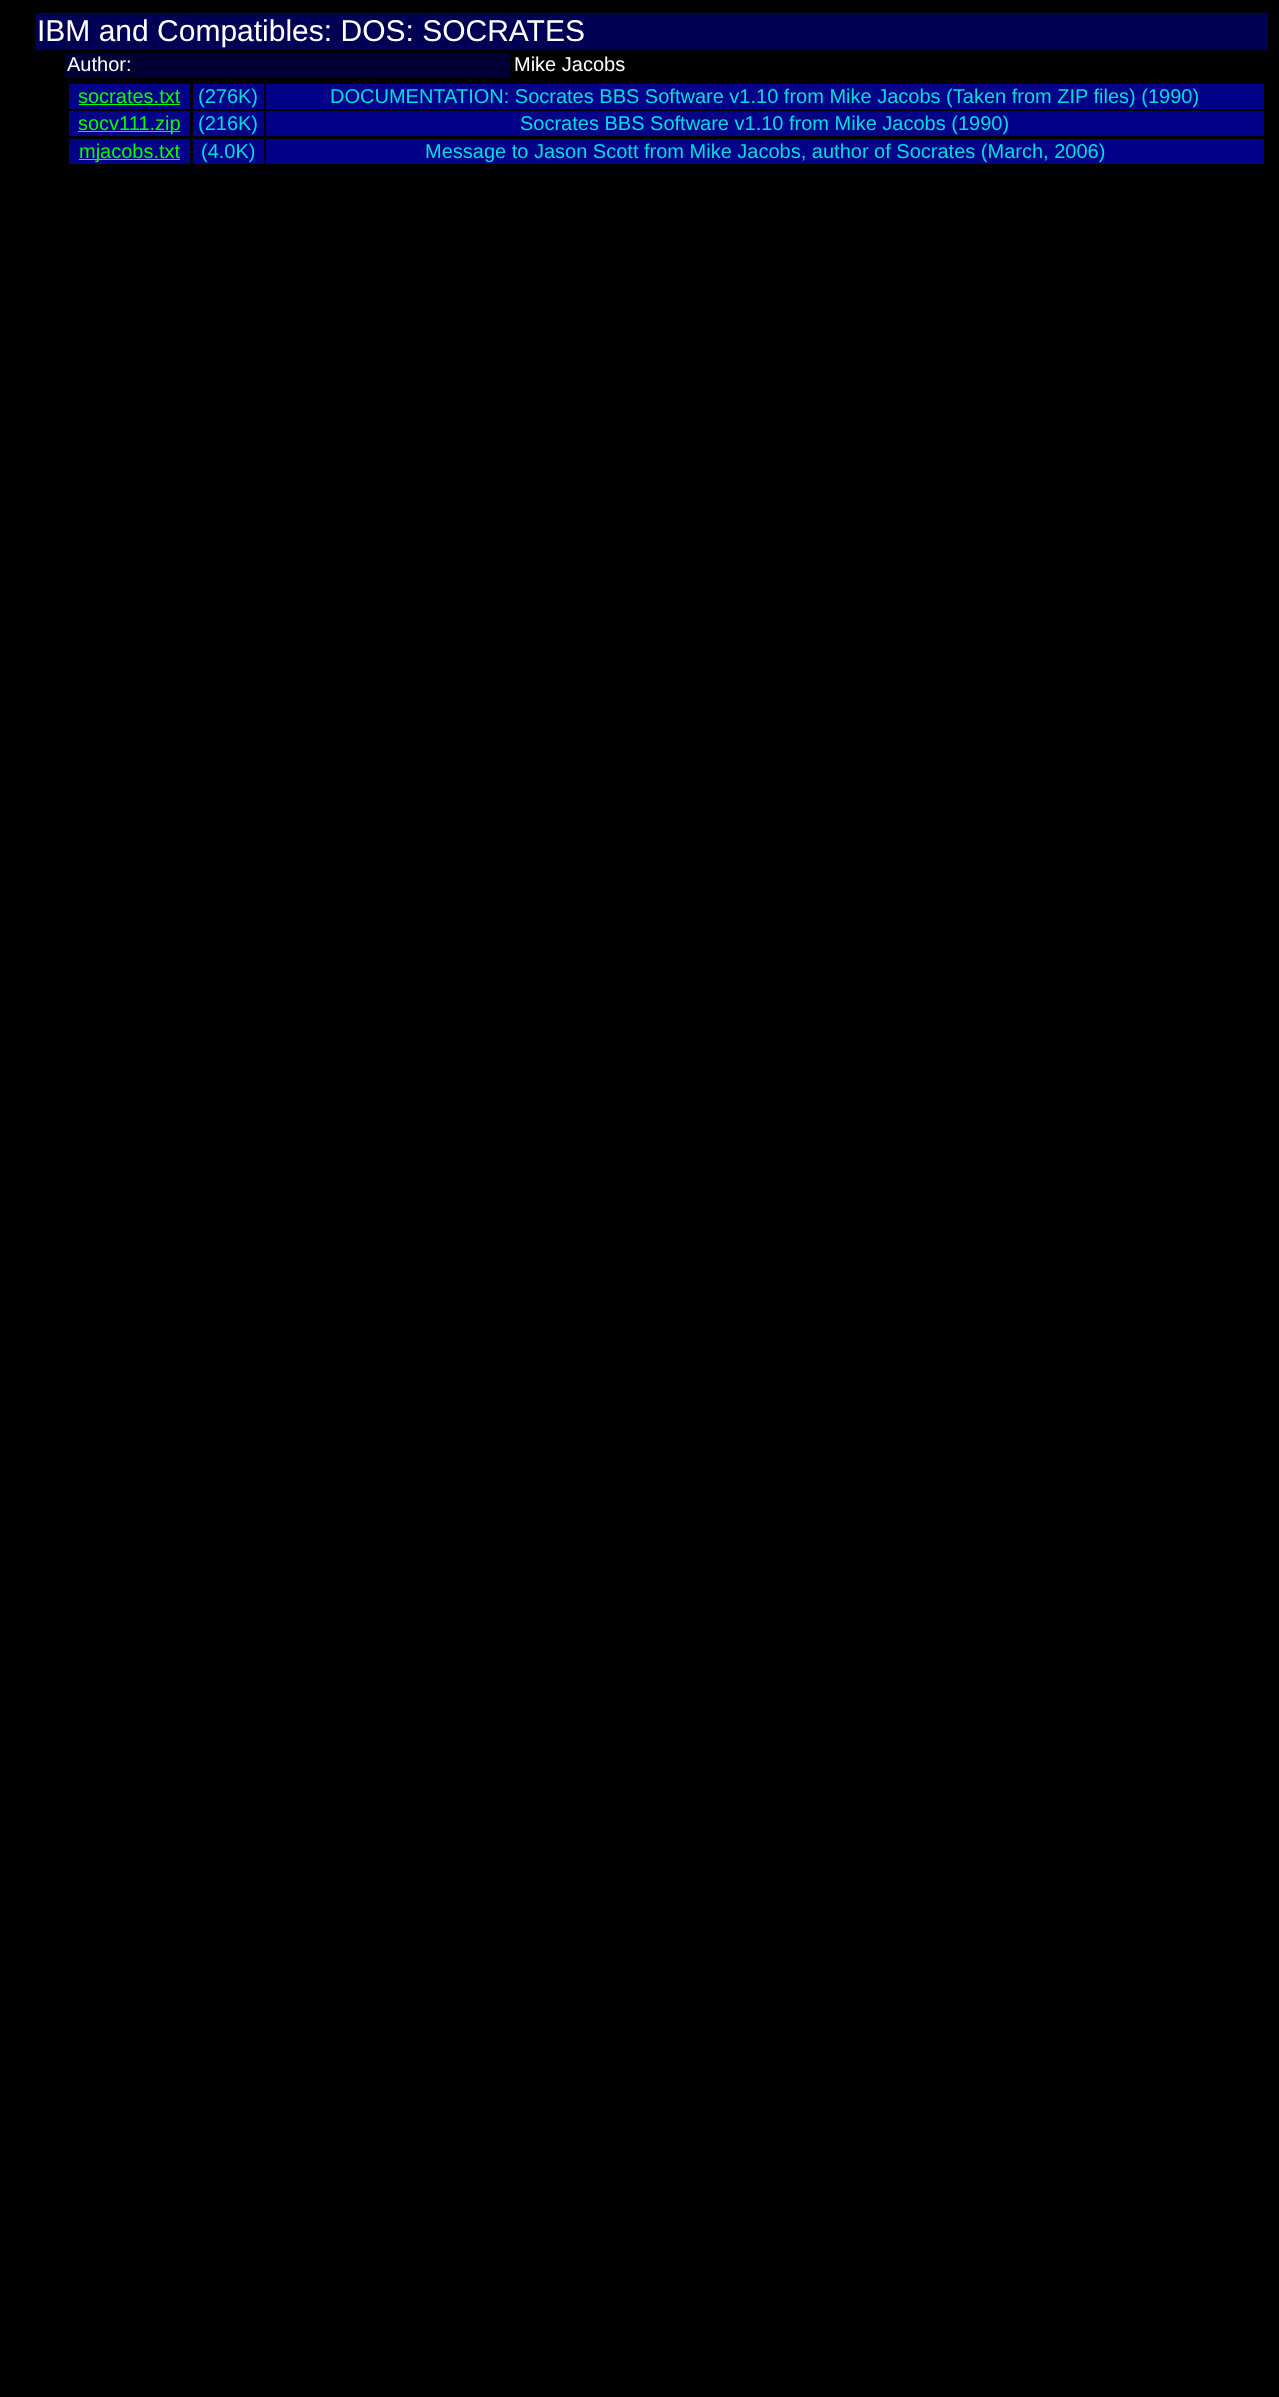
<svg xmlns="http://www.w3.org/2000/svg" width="1279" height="2397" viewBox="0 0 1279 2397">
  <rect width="100%" height="100%" fill="#000000"/>
  <rect x="35" y="13" width="1233" height="37" fill="#000055"/>
  <text x="37" y="41" font-family="Liberation Sans" font-size="30" fill="#ffffff">IBM and Compatibles: DOS: SOCRATES</text>
  <rect x="65" y="53" width="445" height="25" fill="#000033"/>
  <text x="67" y="71" font-family="Liberation Sans" font-size="20" fill="#ffffff">Author:</text>
  <text x="514" y="71" font-family="Liberation Sans" font-size="20" fill="#ffffff">Mike Jacobs</text>
  <rect x="69" y="84" width="121" height="25" fill="#000088"/>
  <text x="78" y="103" font-family="Liberation Sans" font-size="20" fill="#00ff00">socrates.txt</text>
  <rect x="79" y="104" width="101" height="1" fill="#00ff00"/>
  <rect x="193" y="84" width="71" height="25" fill="#000088"/>
  <text x="198" y="103" font-family="Liberation Sans" font-size="20" fill="#00dddd">(276K)</text>
  <rect x="266" y="84" width="998" height="25" fill="#000088"/>
  <text x="330" y="103" font-family="Liberation Sans" font-size="20" fill="#00dddd">DOCUMENTATION: Socrates BBS Software v1.10 from Mike Jacobs (Taken from ZIP files) (1990)</text>
  <rect x="69" y="111" width="121" height="25" fill="#000088"/>
  <rect x="78" y="131" width="102" height="1" fill="#00ff00"/>
  <text x="78" y="130" font-family="Liberation Sans" font-size="20" fill="#00ff00">socv111.zip</text>
  <rect x="193" y="111" width="71" height="25" fill="#000088"/>
  <text x="198" y="130" font-family="Liberation Sans" font-size="20" fill="#00dddd">(216K)</text>
  <rect x="266" y="111" width="998" height="25" fill="#000088"/>
  <text x="520" y="130" font-family="Liberation Sans" font-size="20" fill="#00dddd">Socrates BBS Software v1.10 from Mike Jacobs (1990)</text>
  <rect x="69" y="139" width="121" height="25" fill="#000088"/>
  <rect x="79" y="159" width="101" height="1" fill="#00ff00"/>
  <text x="79" y="158" font-family="Liberation Sans" font-size="20" fill="#00ff00">mjacobs.txt</text>
  <rect x="193" y="139" width="71" height="25" fill="#000088"/>
  <text x="201" y="158" font-family="Liberation Sans" font-size="20" fill="#00dddd">(4.0K)</text>
  <rect x="266" y="139" width="998" height="25" fill="#000088"/>
  <text x="425" y="158" font-family="Liberation Sans" font-size="20" fill="#00dddd">Message to Jason Scott from Mike Jacobs, author of Socrates (March, 2006)</text>
</svg>
